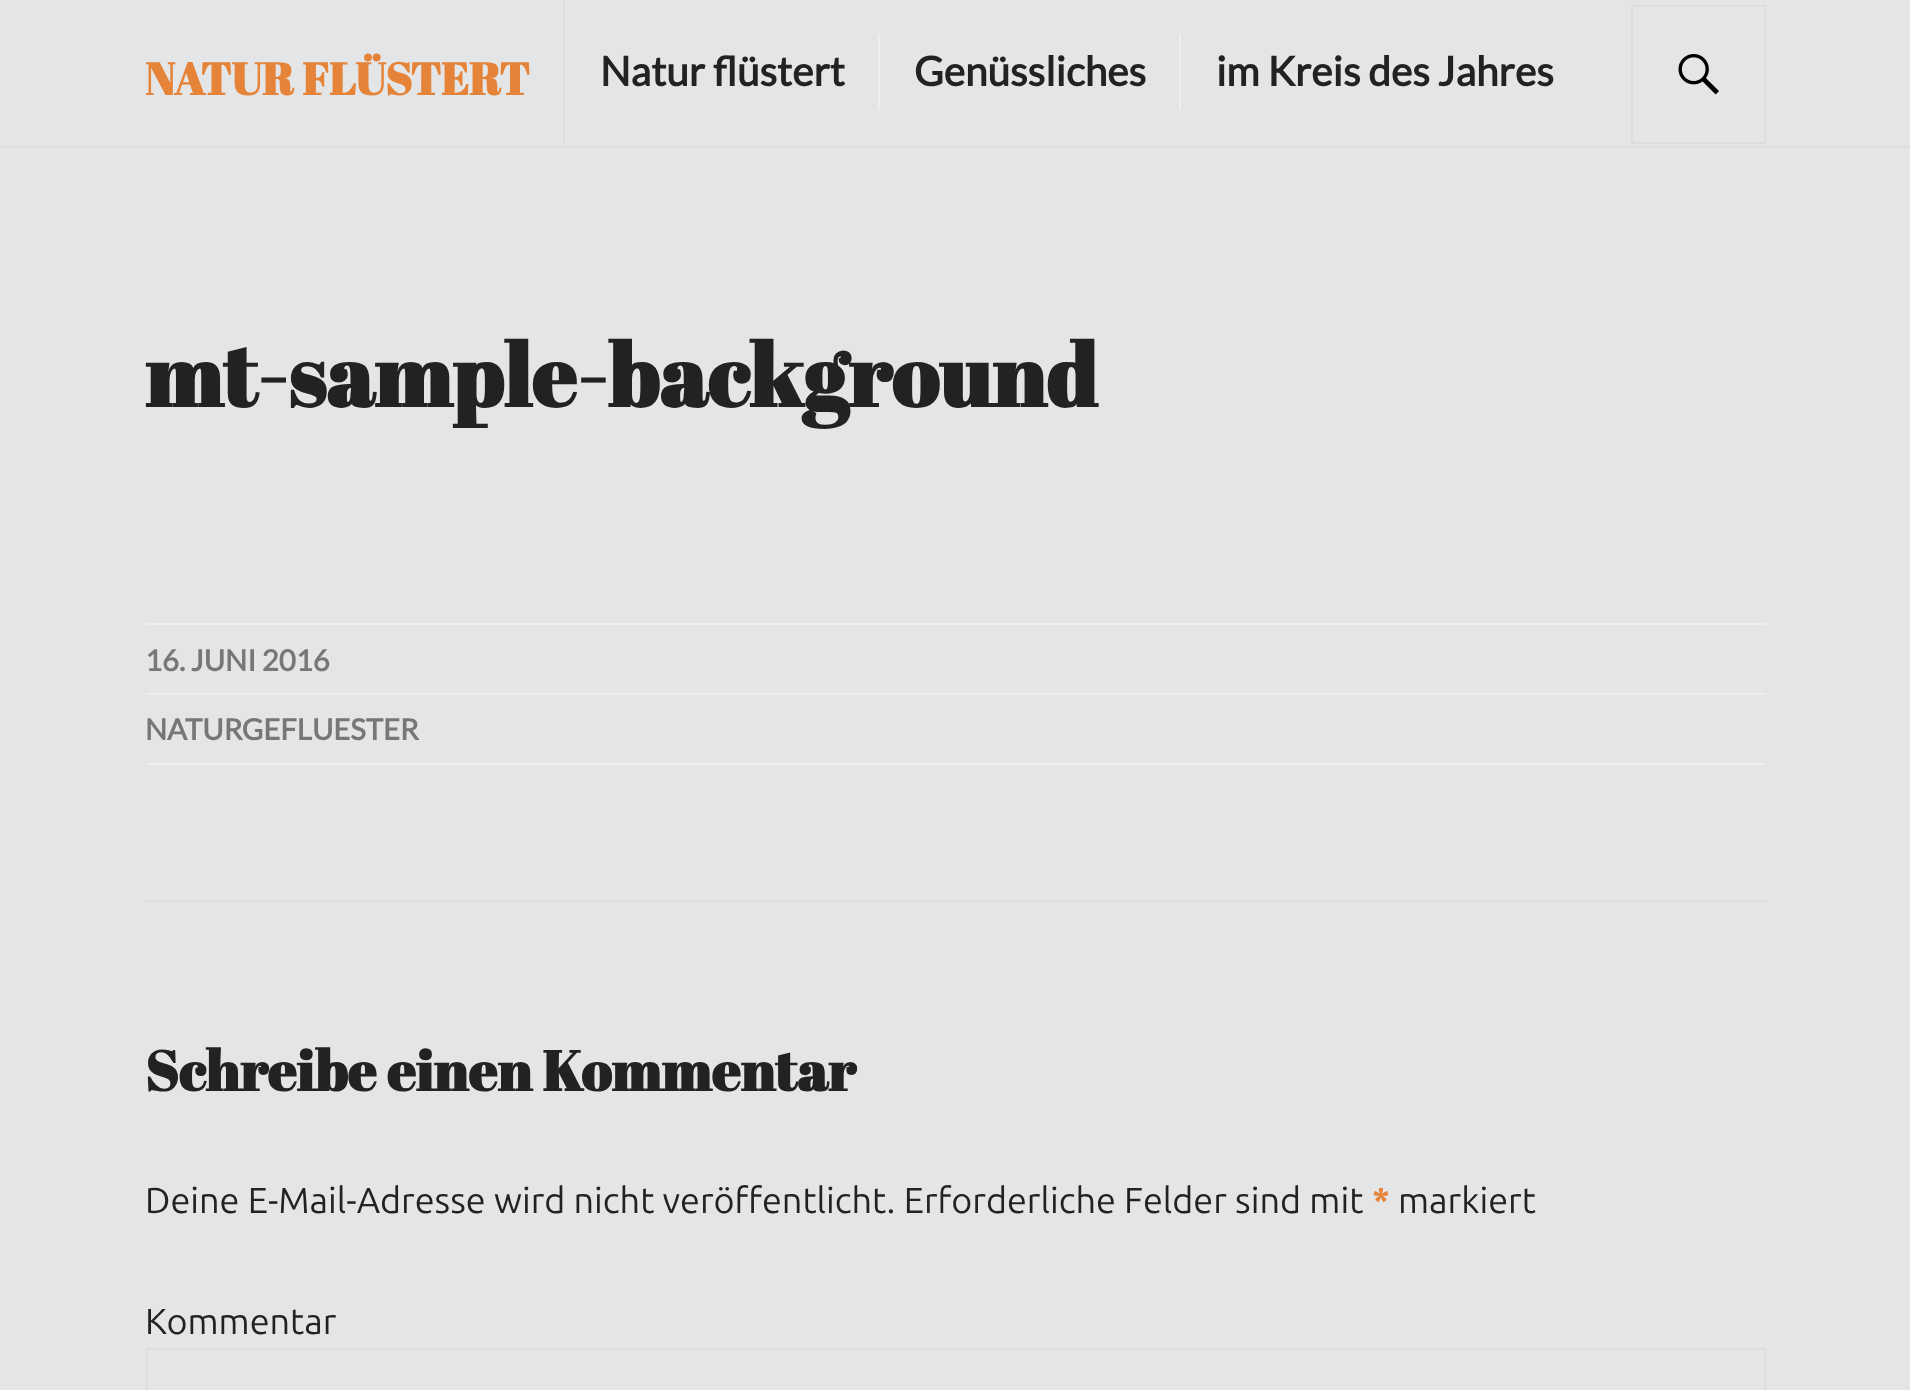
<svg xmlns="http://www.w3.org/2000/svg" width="1910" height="1390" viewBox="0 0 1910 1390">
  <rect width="100%" height="100%" fill="#e4e5e6"/>
  <rect x="0" y="146" width="1910" height="2" fill="#dddddd"/>
  <text x="145" y="95" font-family="Abril Fatface" font-size="45" font-weight="bold" fill="#e58338">NATUR FLÜSTERT</text>
  <rect x="563" y="0" width="2" height="144" fill="#dddddd"/>
  <text x="600" y="86" font-family="Lato" font-size="40.5" font-weight="bold" fill="#222222">Natur flüstert</text>
  <rect x="878" y="34" width="2" height="76" fill="#eeeeee"/>
  <text x="914" y="86" font-family="Lato" font-size="40.5" font-weight="bold" fill="#222222">Genüssliches</text>
  <rect x="1179" y="34" width="2" height="76" fill="#eeeeee"/>
  <text x="1216" y="86" font-family="Lato" font-size="40.5" font-weight="bold" fill="#222222">im Kreis des Jahres</text>
  <rect x="1632" y="6" width="133" height="137" fill="none" stroke="#dddddd" stroke-width="2"/>
  <image x="1678" y="54" width="41" height="41" href="img1.png"/>
  <text x="145" y="407" font-family="Abril Fatface" font-size="87.75" font-weight="bold" fill="#222222">mt-sample-background</text>
  <rect x="146" y="623" width="1620" height="2" fill="#eeeeee"/>
  <text x="145" y="671" font-family="Lato" font-size="29.25" font-weight="bold" fill="#777777">16. JUNI 2016</text>
  <rect x="146" y="693" width="1620" height="2" fill="#eeeeee"/>
  <rect x="146" y="763" width="1620" height="2" fill="#eeeeee"/>
  <text x="145" y="740" font-family="Lato" font-size="29.25" font-weight="bold" fill="#777777">NATURGEFLUESTER</text>
  <rect x="146" y="900" width="1620" height="2" fill="#dddddd"/>
  <text x="145" y="1091" font-family="Abril Fatface" font-size="56.25" font-weight="bold" fill="#222222">Schreibe einen Kommentar</text>
  <text x="145" y="1213" font-family="Ubuntu" font-size="36" fill="#222222">Deine E-Mail-Adresse wird nicht veröffentlicht. Erforderliche Felder sind mit</text>
  <text x="1372" y="1213" font-family="Ubuntu" font-size="36" font-weight="bold" fill="#e58338">*</text>
  <text x="1398" y="1213" font-family="Ubuntu" font-size="36" fill="#222222">markiert</text>
  <text x="145" y="1334" font-family="Ubuntu" font-size="36" fill="#222222">Kommentar</text>
  <rect x="147" y="1349" width="1618" height="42" fill="none" stroke="#dddddd" stroke-width="2"/>
</svg>
